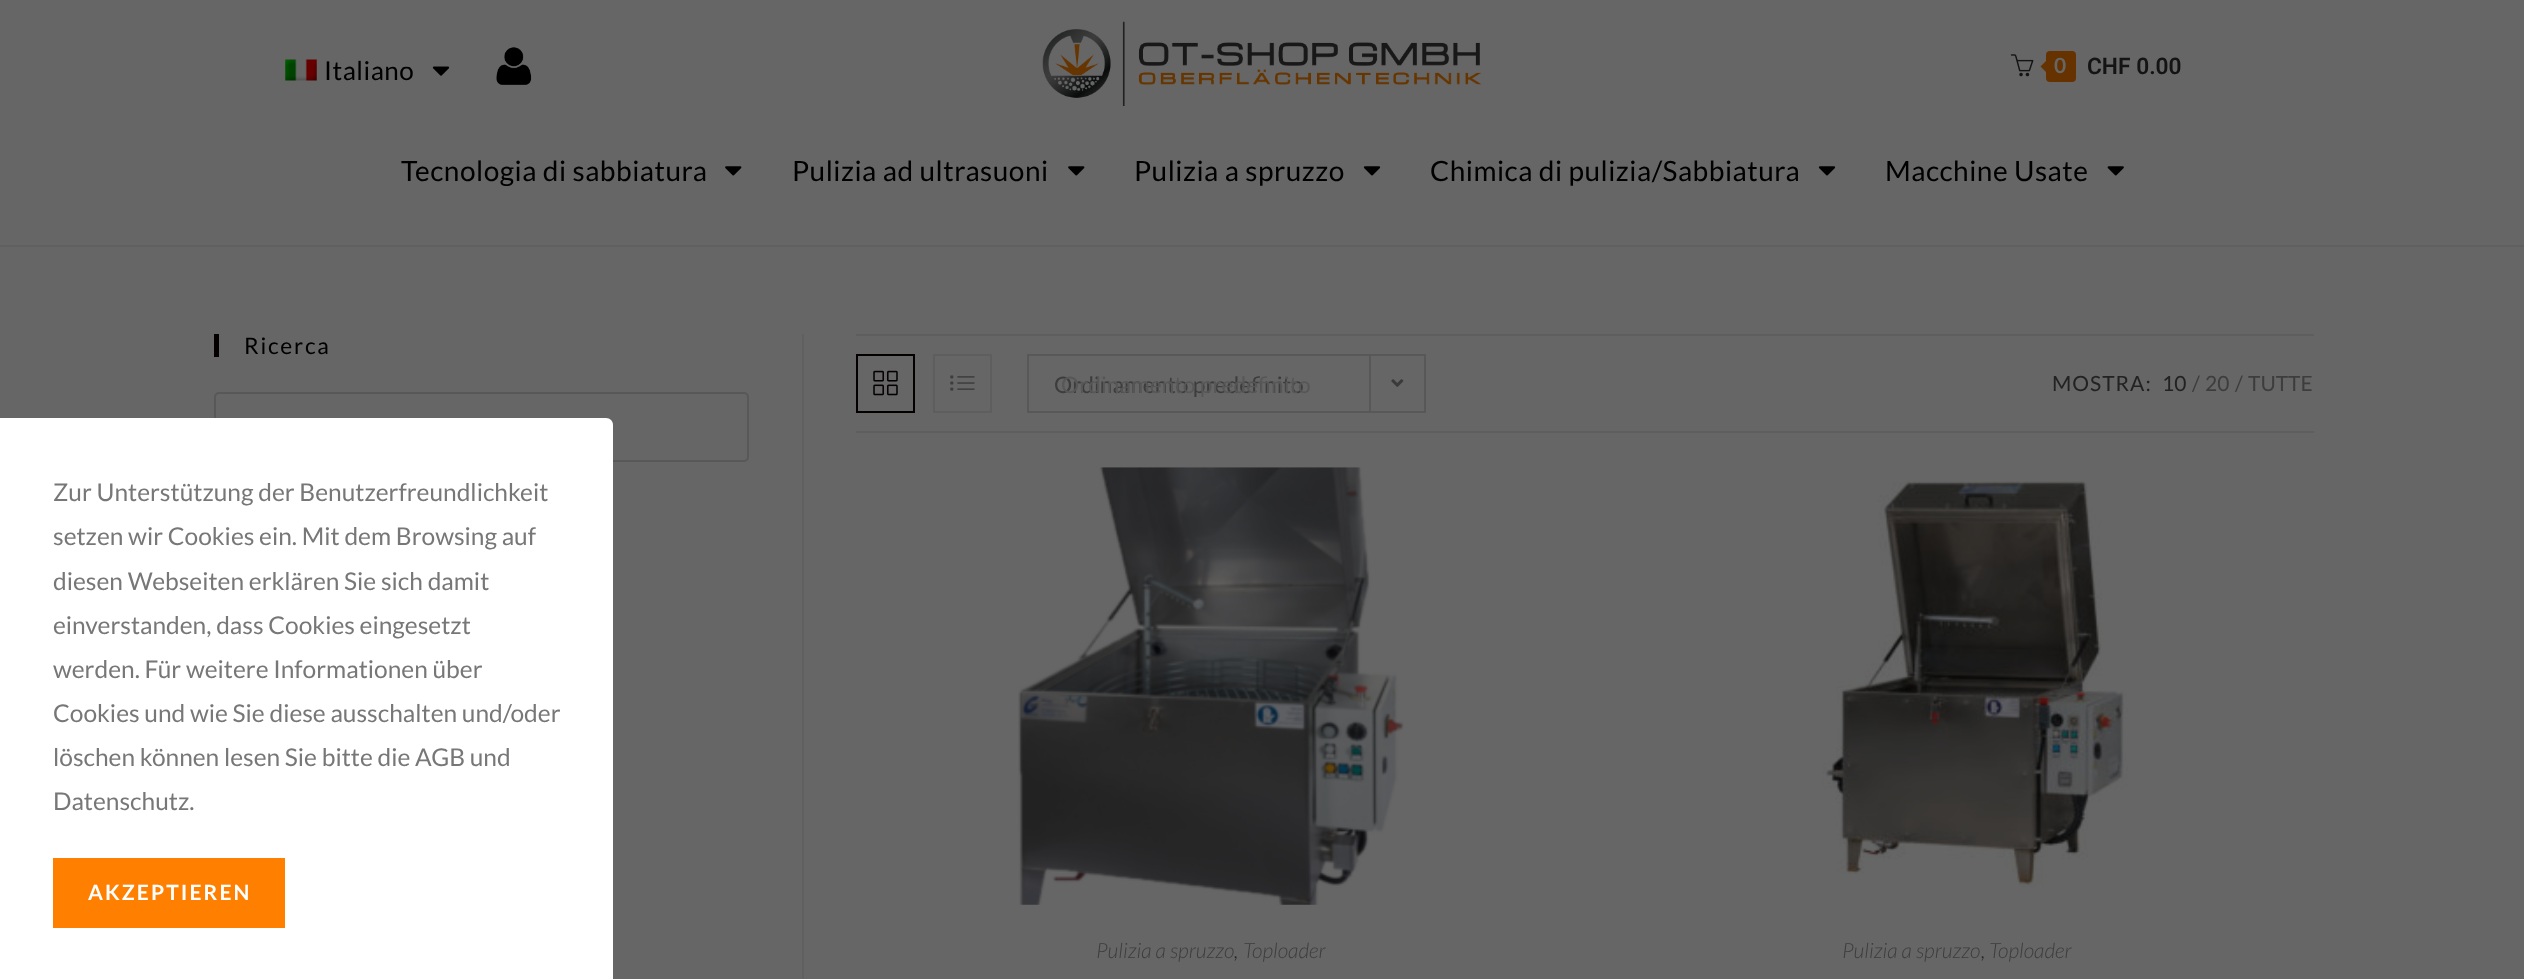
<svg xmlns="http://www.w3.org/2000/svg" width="2524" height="979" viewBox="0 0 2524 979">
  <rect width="100%" height="100%" fill="#666666"/>
  <rect x="0" y="245" width="2524" height="2" fill="#606060"/>
  <image x="285" y="59" width="32" height="22" href="img1.png"/>
  <text x="324" y="80" font-family="Lato" font-size="26" letter-spacing="0.5" fill="#000000">Italiano</text>
  <image x="432" y="66" width="18" height="10" href="img2.png"/>
  <image x="496" y="47" width="36" height="38" href="img3.png"/>
  <image x="1042" y="21" width="440" height="85" href="img4.png"/>
  <image x="2010" y="54" width="24" height="23" href="img5.png"/>
  <rect x="2046" y="51" width="30" height="31" rx="4" fill="#663300"/>
  <path d="M2049 58V75L2040.5 66.5Z" fill="#663300"/>
  <text x="2054" y="73" font-family="Lato" font-size="21" font-weight="bold" fill="#666666">0</text>
  <text x="2087" y="74" font-family="Roboto" font-size="22.75" font-weight="600" fill="#141414">CHF 0.00</text>
  <text x="401" y="181" font-family="Lato" font-size="28" letter-spacing="0.5" fill="#000000">Tecnologia di sabbiatura</text>
  <image x="725" y="166" width="17" height="10" href="img6.png"/>
  <text x="792" y="181" font-family="Lato" font-size="28" letter-spacing="0.5" fill="#000000">Pulizia ad ultrasuoni</text>
  <image x="1068" y="166" width="17" height="10" href="img6.png"/>
  <text x="1134" y="181" font-family="Lato" font-size="28" letter-spacing="0.5" fill="#000000">Pulizia a spruzzo</text>
  <image x="1363" y="166" width="18" height="10" href="img7.png"/>
  <text x="1430" y="181" font-family="Lato" font-size="28" letter-spacing="0.5" fill="#000000">Chimica di pulizia/Sabbiatura</text>
  <image x="1818" y="166" width="18" height="10" href="img7.png"/>
  <text x="1885" y="181" font-family="Lato" font-size="28" letter-spacing="0.5" fill="#000000">Macchine Usate</text>
  <image x="2107" y="166" width="17" height="10" href="img8.png"/>
  <rect x="214" y="334" width="5" height="23" fill="#040000"/>
  <text x="244" y="354" font-family="Lato" font-size="22.75" letter-spacing="1.75" fill="#000000">Ricerca</text>
  <rect x="215" y="393" width="533" height="68" rx="4" fill="none" stroke="#585858" stroke-width="2"/>
  <rect x="802" y="334" width="2" height="645" fill="#606060"/>
  <rect x="856" y="334" width="1458" height="2" fill="#5e5e5e"/>
  <rect x="856" y="431" width="1458" height="2" fill="#5e5e5e"/>
  <rect x="857" y="355" width="57" height="57" fill="none" stroke="#040000" stroke-width="2"/>
  <image x="873" y="370" width="25" height="26" href="img9.png"/>
  <rect x="934" y="355" width="57" height="57" fill="none" stroke="#5e5e5e" stroke-width="2"/>
  <image x="950" y="375" width="25" height="16" href="img10.png"/>
  <rect x="1028" y="355" width="397" height="57" fill="none" stroke="#585858" stroke-width="2"/>
  <text x="1054" y="393" font-family="Lato" font-size="22.75" fill="#3d3d3d">Ordinamento predefinito</text>
  <rect x="1369" y="355" width="2" height="56" fill="#585858"/>
  <image x="1391" y="379" width="13" height="8" href="img11.png"/>
  <text x="1061" y="393" font-family="Lato" font-size="22.75" fill="#575757">Ordinamento predefinito</text>
  <text x="2052" y="391" font-family="Lato" font-size="21" letter-spacing="1" fill="#222222">MOSTRA:</text>
  <text x="2162" y="391" font-family="Lato" font-size="21" fill="#222222">10</text>
  <text x="2192" y="391" font-family="Lato" font-size="21" fill="#3d3d3d">/</text>
  <text x="2205" y="391" font-family="Lato" font-size="21" fill="#3d3d3d">20</text>
  <text x="2235" y="391" font-family="Lato" font-size="21" fill="#3d3d3d">/</text>
  <text x="2248" y="391" font-family="Lato" font-size="21" fill="#3d3d3d">TUTTE</text>
  <image x="1018" y="467" width="386" height="438" href="img12.png"/>
  <text x="1096" y="958" font-family="Lato" font-size="21" font-weight="300" font-style="italic" fill="#3d3d3d">Pulizia a spruzzo</text>
  <text x="1234" y="958" font-family="Lato" font-size="21" font-weight="300" font-style="italic" fill="#222222">,</text>
  <text x="1243" y="958" font-family="Lato" font-size="21" font-weight="300" font-style="italic" fill="#3d3d3d">Toploader</text>
  <image x="1822" y="481" width="306" height="407" href="img13.png"/>
  <text x="1842" y="958" font-family="Lato" font-size="21" font-weight="300" font-style="italic" fill="#3d3d3d">Pulizia a spruzzo</text>
  <text x="1981" y="958" font-family="Lato" font-size="21" font-weight="300" font-style="italic" fill="#222222">,</text>
  <text x="1989" y="958" font-family="Lato" font-size="21" font-weight="300" font-style="italic" fill="#3d3d3d">Toploader</text>
  <path d="M0 418H606C610 418 613 421 613 425V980H0Z" fill="#ffffff"/>
  <text x="53" y="501" font-family="Lato" font-size="24.5" fill="#777777">Zur Unterstützung der Benutzerfreundlichkeit</text>
  <text x="53" y="545" font-family="Lato" font-size="24.5" fill="#777777">setzen wir Cookies ein. Mit dem Browsing auf</text>
  <text x="53" y="590" font-family="Lato" font-size="24.5" fill="#777777">diesen Webseiten erklären Sie sich damit</text>
  <text x="53" y="634" font-family="Lato" font-size="24.5" fill="#777777">einverstanden, dass Cookies eingesetzt</text>
  <text x="53" y="678" font-family="Lato" font-size="24.5" fill="#777777">werden. Für weitere Informationen über</text>
  <text x="53" y="722" font-family="Lato" font-size="24.5" fill="#777777">Cookies und wie Sie diese ausschalten und/oder</text>
  <text x="53" y="766" font-family="Lato" font-size="24.5" fill="#777777">löschen können lesen Sie bitte die AGB und</text>
  <text x="53" y="810" font-family="Lato" font-size="24.5" fill="#777777">Datenschutz.</text>
  <rect x="53" y="858" width="232" height="70" fill="#ff7f00"/>
  <text x="88" y="900" font-family="Lato" font-size="21" font-weight="bold" letter-spacing="2.1" fill="#ffffff">AKZEPTIEREN</text>
</svg>
